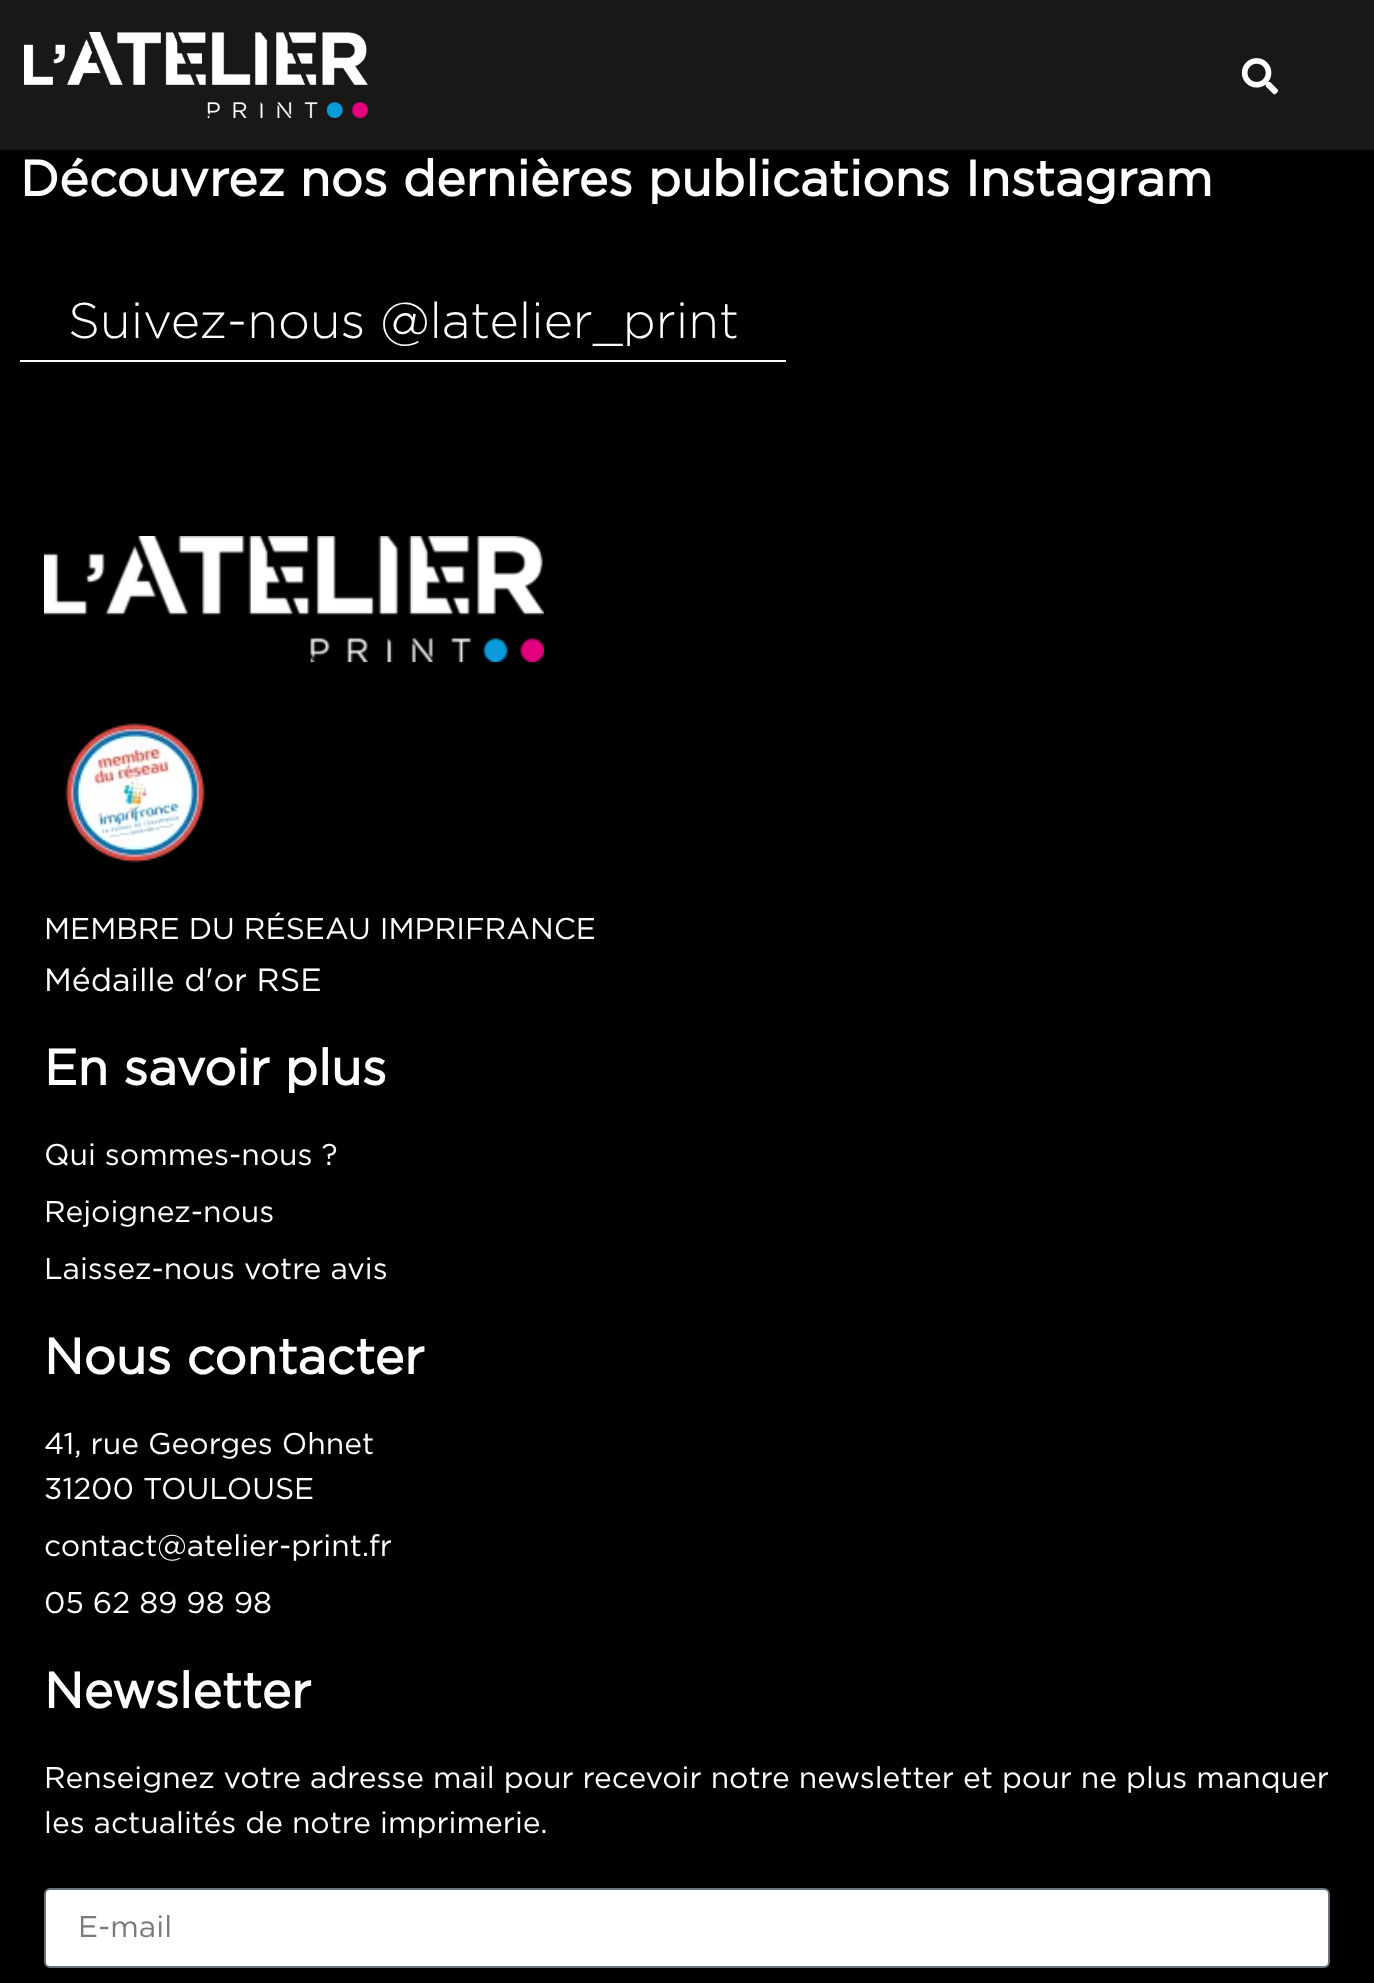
<svg xmlns="http://www.w3.org/2000/svg" width="1374" height="1983" viewBox="0 0 1374 1983">
  <rect width="100%" height="100%" fill="#000000"/>
  <rect x="0" y="0" width="1374" height="150" fill="#191817"/>
  <image x="24" y="32" width="344" height="86" href="img1.png"/>
  <image x="1241" y="58" width="38" height="37" href="img2.png"/>
  <text x="20" y="196" font-family="Gotham" font-size="50" font-weight="bold" fill="#ffffff">Découvrez nos dernières publications Instagram</text>
  <rect x="20" y="360" width="766" height="2" fill="#ffffff"/>
  <text x="68" y="338" font-family="Gotham" font-size="50" font-weight="300" fill="#ffffff">Suivez-nous @latelier_print</text>
  <image x="44" y="536" width="500" height="126" href="img3.png"/>
  <image x="65" y="723" width="140" height="140" href="img4.png"/>
  <text x="44" y="939" font-family="Gotham" font-size="30" fill="#ffffff">MEMBRE DU RÉSEAU IMPRIFRANCE</text>
  <text x="44" y="991" font-family="Gotham" font-size="32" fill="#ffffff">Médaille d'or RSE</text>
  <text x="44" y="1085" font-family="Gotham" font-size="50" font-weight="bold" fill="#ffffff">En savoir plus</text>
  <text x="44" y="1165" font-family="Gotham" font-size="30" fill="#ffffff">Qui sommes-nous ?</text>
  <text x="44" y="1222" font-family="Gotham" font-size="30" fill="#ffffff">Rejoignez-nous</text>
  <text x="44" y="1279" font-family="Gotham" font-size="30" fill="#ffffff">Laissez-nous votre avis</text>
  <text x="44" y="1374" font-family="Gotham" font-size="50" font-weight="bold" fill="#ffffff">Nous contacter</text>
  <text x="44" y="1454" font-family="Gotham" font-size="30" fill="#ffffff">41, rue Georges Ohnet</text>
  <text x="44" y="1499" font-family="Gotham" font-size="30" fill="#ffffff">31200 TOULOUSE</text>
  <text x="44" y="1556" font-family="Gotham" font-size="30" fill="#ffffff">contact@atelier-print.fr</text>
  <text x="44" y="1613" font-family="Gotham" font-size="30" fill="#ffffff">05 62 89 98 98</text>
  <text x="44" y="1708" font-family="Gotham" font-size="50" font-weight="bold" fill="#ffffff">Newsletter</text>
  <text x="44" y="1788" font-family="Gotham" font-size="30" fill="#ffffff">Renseignez votre adresse mail pour recevoir notre newsletter et pour ne plus manquer</text>
  <text x="44" y="1833" font-family="Gotham" font-size="30" fill="#ffffff">les actualités de notre imprimerie.</text>
  <rect x="45" y="1889" width="1284" height="78" rx="5" fill="#ffffff" stroke="#69727d" stroke-width="2"/>
  <text x="78" y="1937" font-family="Gotham" font-size="30" fill="#797a7c">E-mail</text>
</svg>
